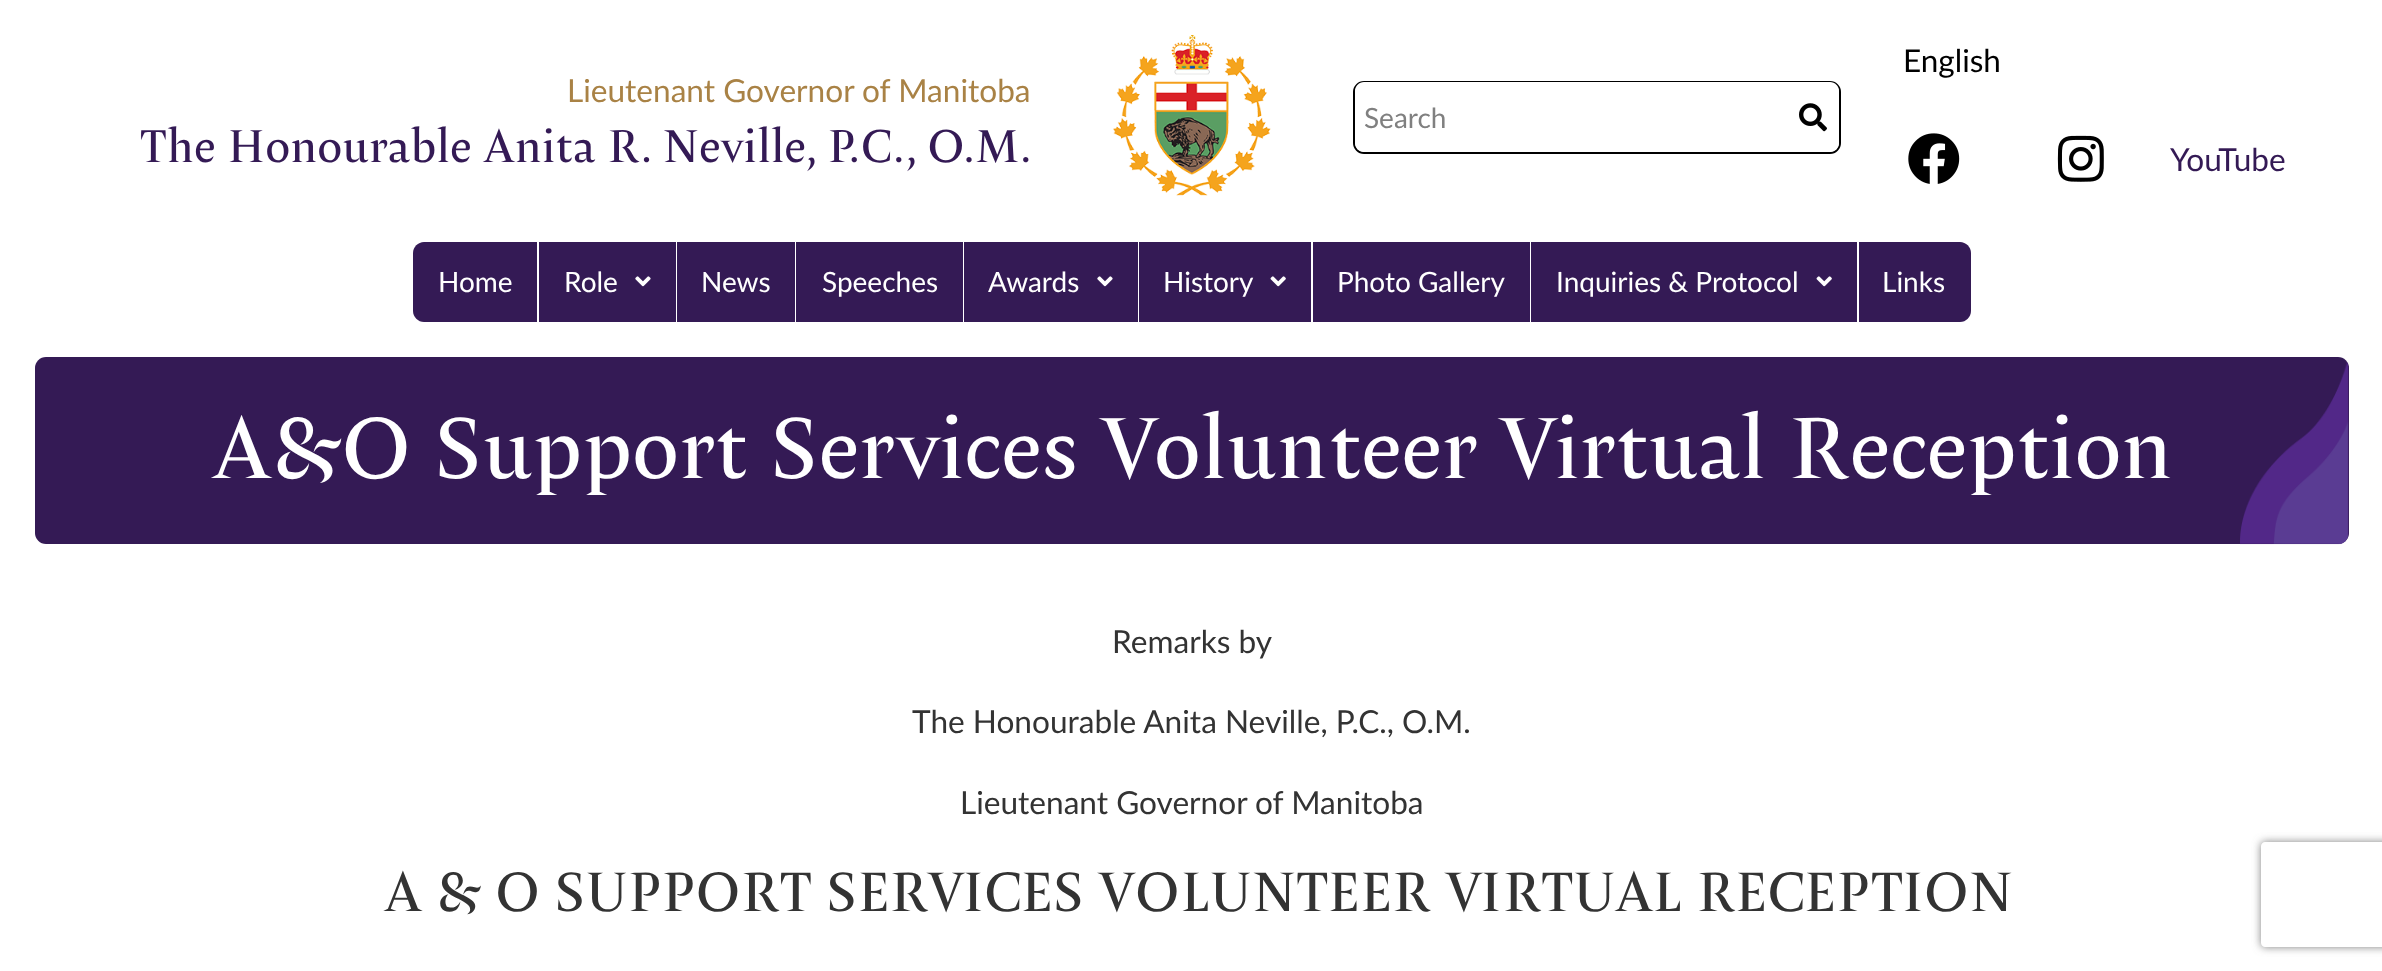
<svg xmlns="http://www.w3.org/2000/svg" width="2382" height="971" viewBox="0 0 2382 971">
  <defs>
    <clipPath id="clip1"><path d="M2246 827H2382V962H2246ZM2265 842H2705C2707 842 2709 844 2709 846V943C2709 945 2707 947 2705 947H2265C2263 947 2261 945 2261 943V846C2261 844 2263 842 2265 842Z" clip-rule="evenodd"/></clipPath>
    <filter id="blur1" x="-50%" y="-200%" width="200%" height="500%"><feGaussianBlur stdDeviation="4.5"/></filter>
  </defs>
  <rect width="100%" height="100%" fill="#ffffff"/>
  <text x="567" y="102" font-family="Lato" font-size="31.6" fill="#a98245">Lieutenant Governor of Manitoba</text>
  <text x="140" y="162" font-family="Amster" font-size="45.4" fill="#341a55">The Honourable Anita R. Neville, P.C., O.M.</text>
  <image x="1113" y="35" width="158" height="161" href="img1.png"/>
  <rect x="1354" y="82" width="486" height="71" rx="10" fill="none" stroke="#000000" stroke-width="2"/>
  <path d="M1364 82H1787V152H1364C1359 152 1355 148 1355 143V91C1355 86 1359 82 1364 82Z" fill="#ffffff"/>
  <text x="1364" y="128" font-family="Lato" font-size="28" fill="#808080">Search</text>
  <path d="M1787 82H1830C1835 82 1839 86 1839 91V143C1839 148 1835 152 1830 152H1787Z" fill="#ffffff"/>
  <image x="1799" y="103" width="28" height="29" href="img2.png"/>
  <text x="1903" y="72" font-family="Lato" font-size="31.5" fill="#000000">English</text>
  <image x="1908" y="133" width="52" height="51" href="img3.png"/>
  <image x="2057" y="135" width="47" height="47" href="img4.png"/>
  <text x="2170" y="171" font-family="Lato" font-size="31.6" fill="#341a55">YouTube</text>
  <path d="M424 242H539V322H424C418 322 413 317 413 311V253C413 247 418 242 424 242Z" fill="#341a55"/>
  <rect x="537" y="242" width="2" height="80" fill="#ffffff"/>
  <text x="438" y="292" font-family="Lato" font-size="28" fill="#ffffff">Home</text>
  <rect x="539" y="242" width="137" height="80" fill="#341a55"/>
  <text x="564" y="292" font-family="Lato" font-size="28" fill="#ffffff">Role</text>
  <image x="635" y="276" width="16" height="11" href="img5.png"/>
  <rect x="677" y="242" width="118" height="80" fill="#341a55"/>
  <text x="701" y="292" font-family="Lato" font-size="28" fill="#ffffff">News</text>
  <rect x="796" y="242" width="167" height="80" fill="#341a55"/>
  <text x="822" y="292" font-family="Lato" font-size="28" fill="#ffffff">Speeches</text>
  <rect x="964" y="242" width="174" height="80" fill="#341a55"/>
  <text x="988" y="292" font-family="Lato" font-size="28" fill="#ffffff">Awards</text>
  <image x="1097" y="276" width="16" height="11" href="img5.png"/>
  <rect x="1139" y="242" width="172" height="80" fill="#341a55"/>
  <text x="1163" y="292" font-family="Lato" font-size="28" fill="#ffffff">History</text>
  <image x="1270" y="276" width="16" height="11" href="img6.png"/>
  <rect x="1313" y="242" width="217" height="80" fill="#341a55"/>
  <text x="1337" y="292" font-family="Lato" font-size="28" fill="#ffffff">Photo Gallery</text>
  <rect x="1531" y="242" width="326" height="80" fill="#341a55"/>
  <text x="1556" y="292" font-family="Lato" font-size="28" fill="#ffffff">Inquiries &amp; Protocol</text>
  <image x="1816" y="276" width="16" height="11" href="img6.png"/>
  <path d="M1859 242H1960C1966 242 1971 247 1971 253V311C1971 317 1966 322 1960 322H1859Z" fill="#341a55"/>
  <text x="1882" y="292" font-family="Lato" font-size="28" fill="#ffffff">Links</text>
  <rect x="35" y="357" width="2314" height="187" rx="11" fill="#341a55"/>
  <image x="2240" y="362" width="109" height="183" href="img7.png"/>
  <text x="212" y="478" font-family="Amster" font-size="85.4" fill="#ffffff">A&amp;O Support Services Volunteer Virtual Reception</text>
  <text x="1112" y="653" font-family="Lato" font-size="31.6" fill="#333333">Remarks by</text>
  <text x="912" y="733" font-family="Lato" font-size="31.6" fill="#333333">The Honourable Anita Neville, P.C., O.M.</text>
  <text x="960" y="814" font-family="Lato" font-size="31.6" fill="#333333">Lieutenant Governor of Manitoba</text>
  <text x="384" y="911" font-family="Amster" font-size="54.6" fill="#333333">A &amp; O SUPPORT SERVICES VOLUNTEER VIRTUAL RECEPTION</text>
  <g clip-path="url(#clip1)">
    <rect x="2261" y="842" width="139" height="105" rx="4" fill="#808080" filter="url(#blur1)"/>
  </g>
</svg>
